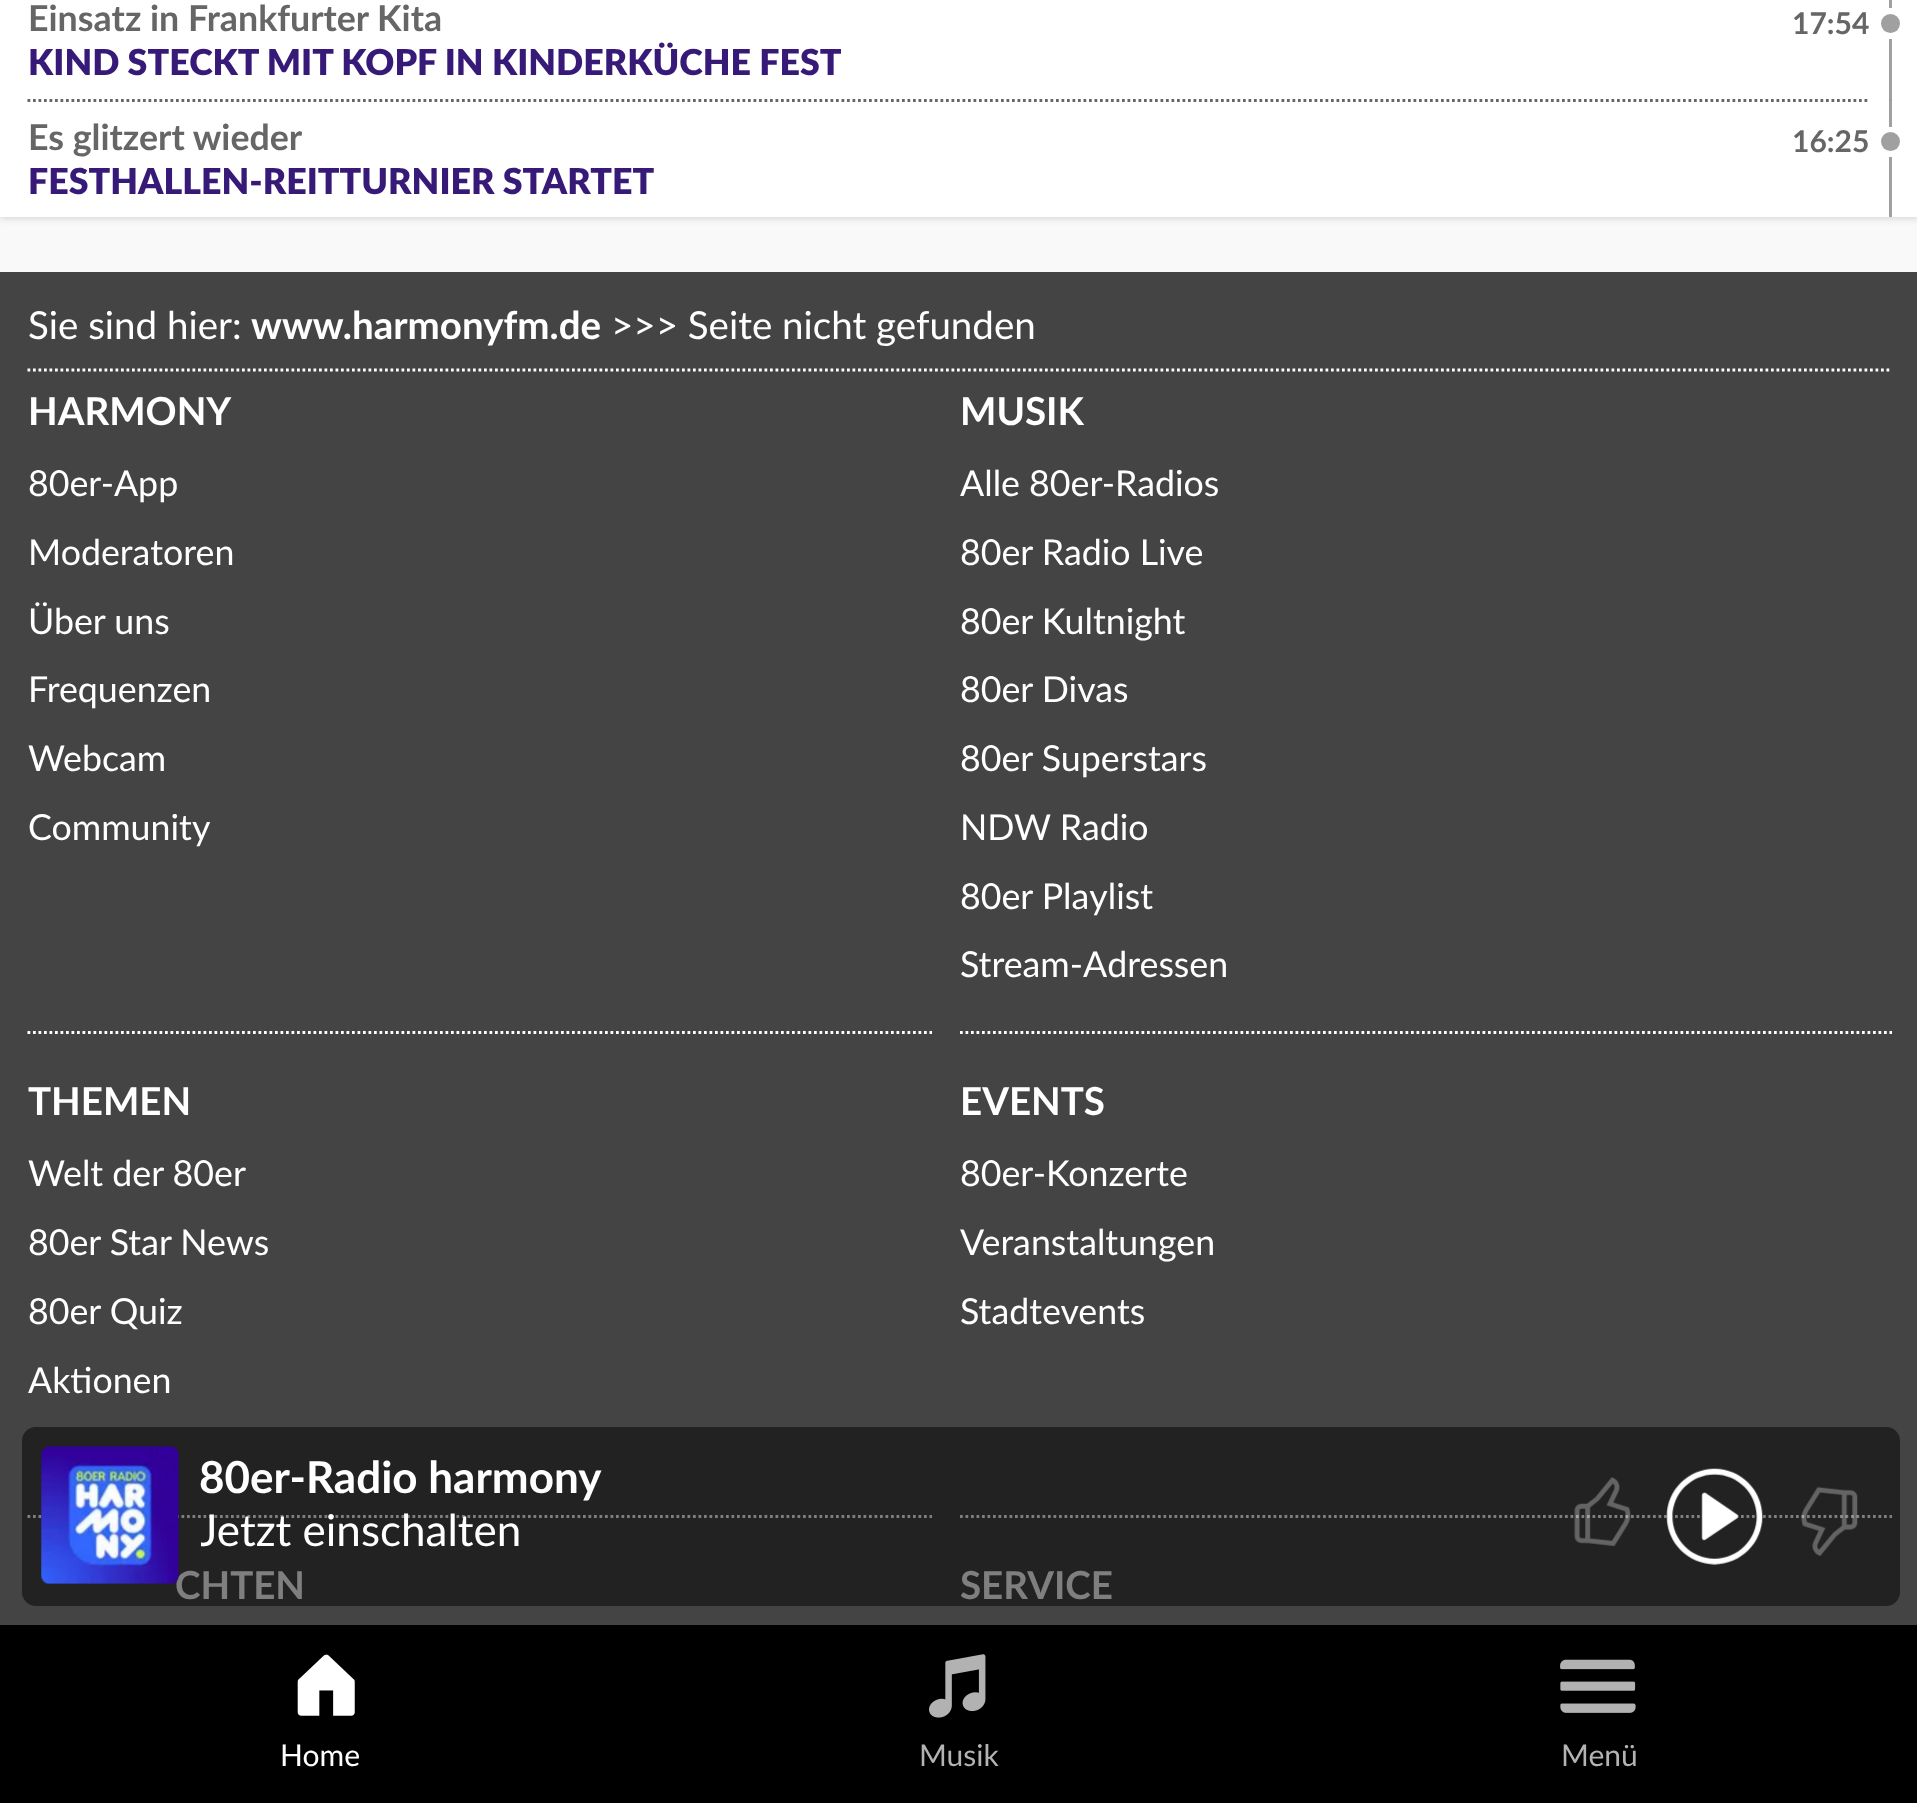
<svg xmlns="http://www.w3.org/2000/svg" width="1917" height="1803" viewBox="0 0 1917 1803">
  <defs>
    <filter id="blur1" x="-50%" y="-200%" width="200%" height="500%"><feGaussianBlur stdDeviation="4"/></filter>
    <clipPath id="clip1"><rect x="201" y="1504" width="1218" height="53"/></clipPath>
  </defs>
  <rect width="100%" height="100%" fill="#f9f9f9"/>
  <rect x="0" y="-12" width="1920" height="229" fill="#000000" fill-opacity="0.2" filter="url(#blur1)"/>
  <rect x="0" y="0" width="1917" height="217" fill="#ffffff"/>
  <rect x="1889" y="0" width="3" height="102" fill="#a0a0a0"/>
  <path d="M27.5 100.5H1892" fill="none" stroke="#666666" stroke-width="2.8" stroke-dasharray="2.75 2.75"/>
  <text x="28" y="31" font-family="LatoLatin" font-size="35.75" font-weight="bold" fill="#666666">Einsatz in Frankfurter Kita</text>
  <rect x="1889" y="8" width="3" height="31" fill="#ffffff"/>
  <circle cx="1890.5" cy="23.5" r="9.5" fill="#a0a0a0"/>
  <text x="1792" y="34" font-family="LatoLatin" font-size="30" font-weight="bold" fill="#666666">17:54</text>
  <text x="28" y="75" font-family="LatoLatin" font-size="35.75" font-weight="900" fill="#371978">KIND STECKT MIT KOPF IN KINDERKÜCHE FEST</text>
  <rect x="1870" y="99" width="19" height="3" fill="#ffffff"/>
  <rect x="1889" y="101" width="3" height="116" fill="#a0a0a0"/>
  <text x="28" y="150" font-family="LatoLatin" font-size="35.75" font-weight="bold" fill="#666666">Es glitzert wieder</text>
  <rect x="1889" y="127" width="3" height="30" fill="#ffffff"/>
  <circle cx="1890.5" cy="141.5" r="9.5" fill="#a0a0a0"/>
  <text x="1792" y="152" font-family="LatoLatin" font-size="30" font-weight="bold" fill="#666666">16:25</text>
  <text x="28" y="194" font-family="LatoLatin" font-size="35.75" font-weight="900" fill="#371978">FESTHALLEN-REITTURNIER STARTET</text>
  <rect x="0" y="272" width="1917" height="1353" fill="#444444"/>
  <path d="M27.5 370H1892" fill="none" stroke="#ffffff" stroke-width="2.8" stroke-dasharray="2.75 2.75"/>
  <text x="28" y="339" font-family="LatoLatin" font-size="38.5" fill="#ffffff">Sie sind hier:</text>
  <text x="251" y="339" font-family="LatoLatin" font-size="38.5" font-weight="bold" fill="#ffffff">www.harmonyfm.de</text>
  <text x="611" y="339" font-family="LatoLatin" font-size="38.5" fill="#ffffff">&gt;&gt;&gt; Seite nicht gefunden</text>
  <text x="28" y="425" font-family="LatoLatin" font-size="38.5" font-weight="bold" fill="#ffffff">HARMONY</text>
  <text x="28" y="496" font-family="LatoLatin" font-size="35.75" fill="#ffffff">80er-App</text>
  <text x="28" y="565" font-family="LatoLatin" font-size="35.75" fill="#ffffff">Moderatoren</text>
  <text x="28" y="634" font-family="LatoLatin" font-size="35.75" fill="#ffffff">Über uns</text>
  <text x="28" y="702" font-family="LatoLatin" font-size="35.75" fill="#ffffff">Frequenzen</text>
  <text x="28" y="771" font-family="LatoLatin" font-size="35.75" fill="#ffffff">Webcam</text>
  <text x="28" y="840" font-family="LatoLatin" font-size="35.75" fill="#ffffff">Community</text>
  <text x="960" y="425" font-family="LatoLatin" font-size="38.5" font-weight="bold" fill="#ffffff">MUSIK</text>
  <text x="960" y="496" font-family="LatoLatin" font-size="35.75" fill="#ffffff">Alle 80er-Radios</text>
  <text x="960" y="565" font-family="LatoLatin" font-size="35.75" fill="#ffffff">80er Radio Live</text>
  <text x="960" y="634" font-family="LatoLatin" font-size="35.75" fill="#ffffff">80er Kultnight</text>
  <text x="960" y="702" font-family="LatoLatin" font-size="35.75" fill="#ffffff">80er Divas</text>
  <text x="960" y="771" font-family="LatoLatin" font-size="35.75" fill="#ffffff">80er Superstars</text>
  <text x="960" y="840" font-family="LatoLatin" font-size="35.75" fill="#ffffff">NDW Radio</text>
  <text x="960" y="909" font-family="LatoLatin" font-size="35.75" fill="#ffffff">80er Playlist</text>
  <text x="960" y="977" font-family="LatoLatin" font-size="35.75" fill="#ffffff">Stream-Adressen</text>
  <path d="M27.5 1032.5H932" fill="none" stroke="#ffffff" stroke-width="2.8" stroke-dasharray="2.75 2.75"/>
  <text x="28" y="1115" font-family="LatoLatin" font-size="38.5" font-weight="bold" fill="#ffffff">THEMEN</text>
  <text x="28" y="1186" font-family="LatoLatin" font-size="35.75" fill="#ffffff">Welt der 80er</text>
  <text x="28" y="1255" font-family="LatoLatin" font-size="35.75" fill="#ffffff">80er Star News</text>
  <text x="28" y="1324" font-family="LatoLatin" font-size="35.75" fill="#ffffff">80er Quiz</text>
  <text x="28" y="1393" font-family="LatoLatin" font-size="35.75" fill="#ffffff">Aktionen</text>
  <path d="M960 1032.5H1892" fill="none" stroke="#ffffff" stroke-width="2.8" stroke-dasharray="2.75 2.75"/>
  <text x="960" y="1115" font-family="LatoLatin" font-size="38.5" font-weight="bold" fill="#ffffff">EVENTS</text>
  <text x="960" y="1186" font-family="LatoLatin" font-size="35.75" fill="#ffffff">80er-Konzerte</text>
  <text x="960" y="1255" font-family="LatoLatin" font-size="35.75" fill="#ffffff">Veranstaltungen</text>
  <text x="960" y="1324" font-family="LatoLatin" font-size="35.75" fill="#ffffff">Stadtevents</text>
  <path d="M27.5 1516.5H932" fill="none" stroke="#ffffff" stroke-width="2.8" stroke-dasharray="2.75 2.75"/>
  <text x="175" y="1599" font-family="LatoLatin" font-size="38.5" font-weight="bold" fill="#ffffff">CHTEN</text>
  <path d="M960 1516.5H1892" fill="none" stroke="#ffffff" stroke-width="2.8" stroke-dasharray="2.75 2.75"/>
  <text x="960" y="1599" font-family="LatoLatin" font-size="38.5" font-weight="bold" fill="#ffffff">SERVICE</text>
  <rect x="22" y="1427" width="1878" height="179" rx="14" fill="#000000" fill-opacity="0.5"/>
  <image x="41" y="1446" width="139" height="138" href="img1.png"/>
  <text x="199" y="1493" font-family="LatoLatin" font-size="44" font-weight="bold" fill="#ffffff">80er-Radio harmony</text>
  <g clip-path="url(#clip1)">
    <text x="199" y="1546" font-family="LatoLatin" font-size="44" fill="#ffffff">Jetzt einschalten</text>
  </g>
  <image x="1574" y="1477" width="57" height="70" href="img2.png"/>
  <image x="1666" y="1468" width="97" height="97" href="img3.png"/>
  <image x="1801" y="1486" width="57" height="70" href="img4.png"/>
  <rect x="0" y="1625" width="1917" height="178" fill="#000000"/>
  <image x="297" y="1654" width="58" height="62" href="img5.png"/>
  <text x="280" y="1766" font-family="LatoLatin" font-size="30" fill="#ffffff">Home</text>
  <image x="929" y="1654" width="57" height="64" href="img6.png"/>
  <text x="919" y="1766" font-family="LatoLatin" font-size="30" fill="#b3b3b3">Musik</text>
  <image x="1560" y="1659" width="76" height="54" href="img7.png"/>
  <text x="1561" y="1766" font-family="LatoLatin" font-size="30" fill="#b3b3b3">Menü</text>
</svg>
